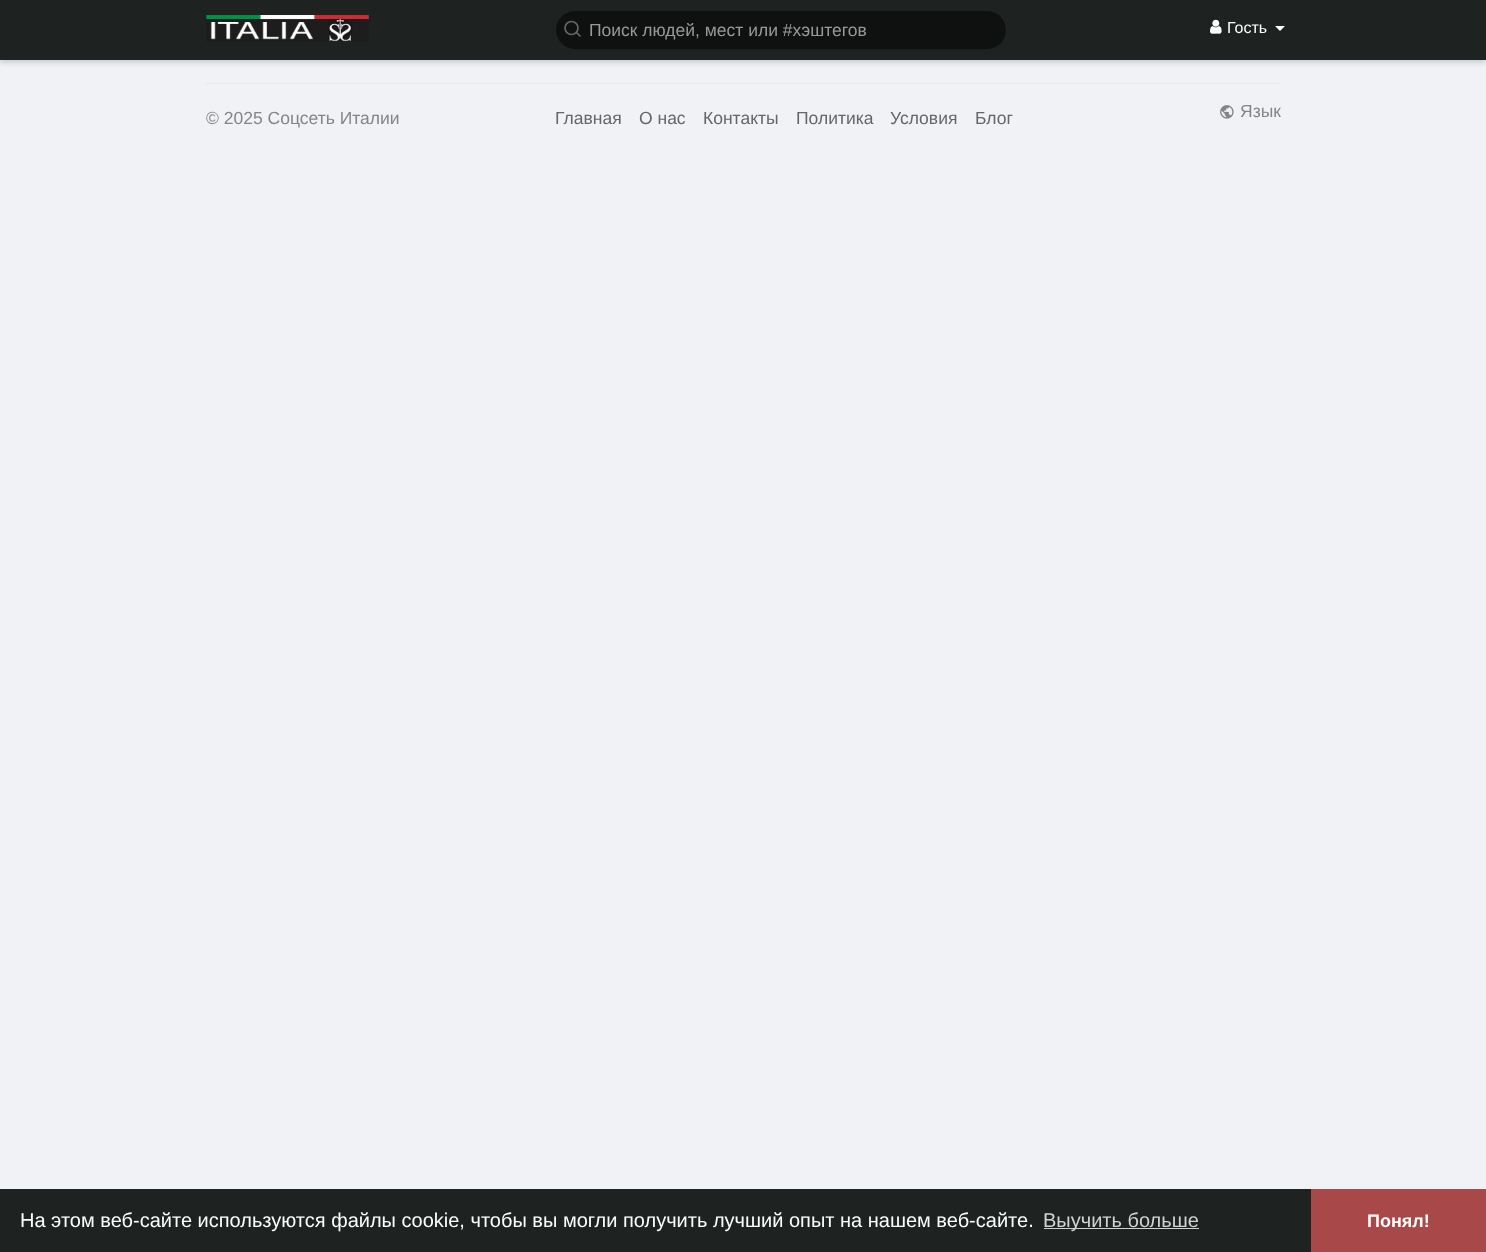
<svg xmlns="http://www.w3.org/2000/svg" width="1486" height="1252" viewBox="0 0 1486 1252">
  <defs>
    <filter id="blur1" x="-50%" y="-200%" width="200%" height="500%"><feGaussianBlur stdDeviation="2.5"/></filter>
  </defs>
  <rect width="100%" height="100%" fill="#f0f2f5"/>
  <rect x="0" y="3" width="1486" height="60" fill="#000000" fill-opacity="0.15" filter="url(#blur1)"/>
  <rect x="0" y="0" width="1486" height="60" fill="#1e2321"/>
  <image x="206" y="15" width="163" height="27" href="img1.png"/>
  <rect x="556" y="11" width="450" height="38" rx="19" fill="#0f1110"/>
  <circle cx="571.5" cy="28" r="6.5" fill="none" stroke="#666666" stroke-width="1.7"/>
  <path d="M580 36L576.5 32.5" fill="none" stroke="#666666" stroke-width="1.7" stroke-linecap="round" stroke-linejoin="round"/>
  <text x="589" y="36" font-family="Liberation Sans" font-size="17.5" fill="#999999">Поиск людей, мест или #хэштегов</text>
  <image x="1210" y="19" width="12" height="15" href="img2.png"/>
  <text x="1227" y="33" font-family="Liberation Sans" font-size="16" fill="#ffffff">Гость</text>
  <path d="M1275 26H1285L1280 31Z" fill="#ffffff"/>
  <rect x="206" y="83" width="1075" height="1" fill="#e9e9e9"/>
  <text x="206" y="124" font-family="Liberation Sans" font-size="17.5" fill="#858585">© 2025 Соцсеть Италии</text>
  <text x="555" y="124" font-family="Liberation Sans" font-size="17.5" fill="#666666">Главная</text>
  <text x="639" y="124" font-family="Liberation Sans" font-size="17.5" fill="#666666">О нас</text>
  <text x="703" y="124" font-family="Liberation Sans" font-size="17.5" fill="#666666">Контакты</text>
  <text x="796" y="124" font-family="Liberation Sans" font-size="17.5" fill="#666666">Политика</text>
  <text x="890" y="124" font-family="Liberation Sans" font-size="17.5" fill="#666666">Условия</text>
  <text x="975" y="124" font-family="Liberation Sans" font-size="17.5" fill="#666666">Блог</text>
  <image x="1220" y="105" width="14" height="14" href="img3.png"/>
  <text x="1240" y="117" font-family="Liberation Sans" font-size="17.5" fill="#858585">Язык</text>
  <rect x="0" y="1189" width="1311" height="63" fill="#1e2321"/>
  <text x="20" y="1227" font-family="Liberation Sans" font-size="20" fill="#ffffff">На этом веб-сайте используются файлы cookie, чтобы вы могли получить лучший опыт на нашем веб-сайте.</text>
  <rect x="1044" y="1228" width="155" height="1" fill="#d2d3d3"/>
  <text x="1043" y="1227" font-family="Liberation Sans" font-size="20" fill="#d2d3d3">Выучить больше</text>
  <rect x="1311" y="1189" width="175" height="63" fill="#a84849"/>
  <text x="1367" y="1227" font-family="Liberation Sans" font-size="18" font-weight="bold" fill="#ffffff">Понял!</text>
</svg>
